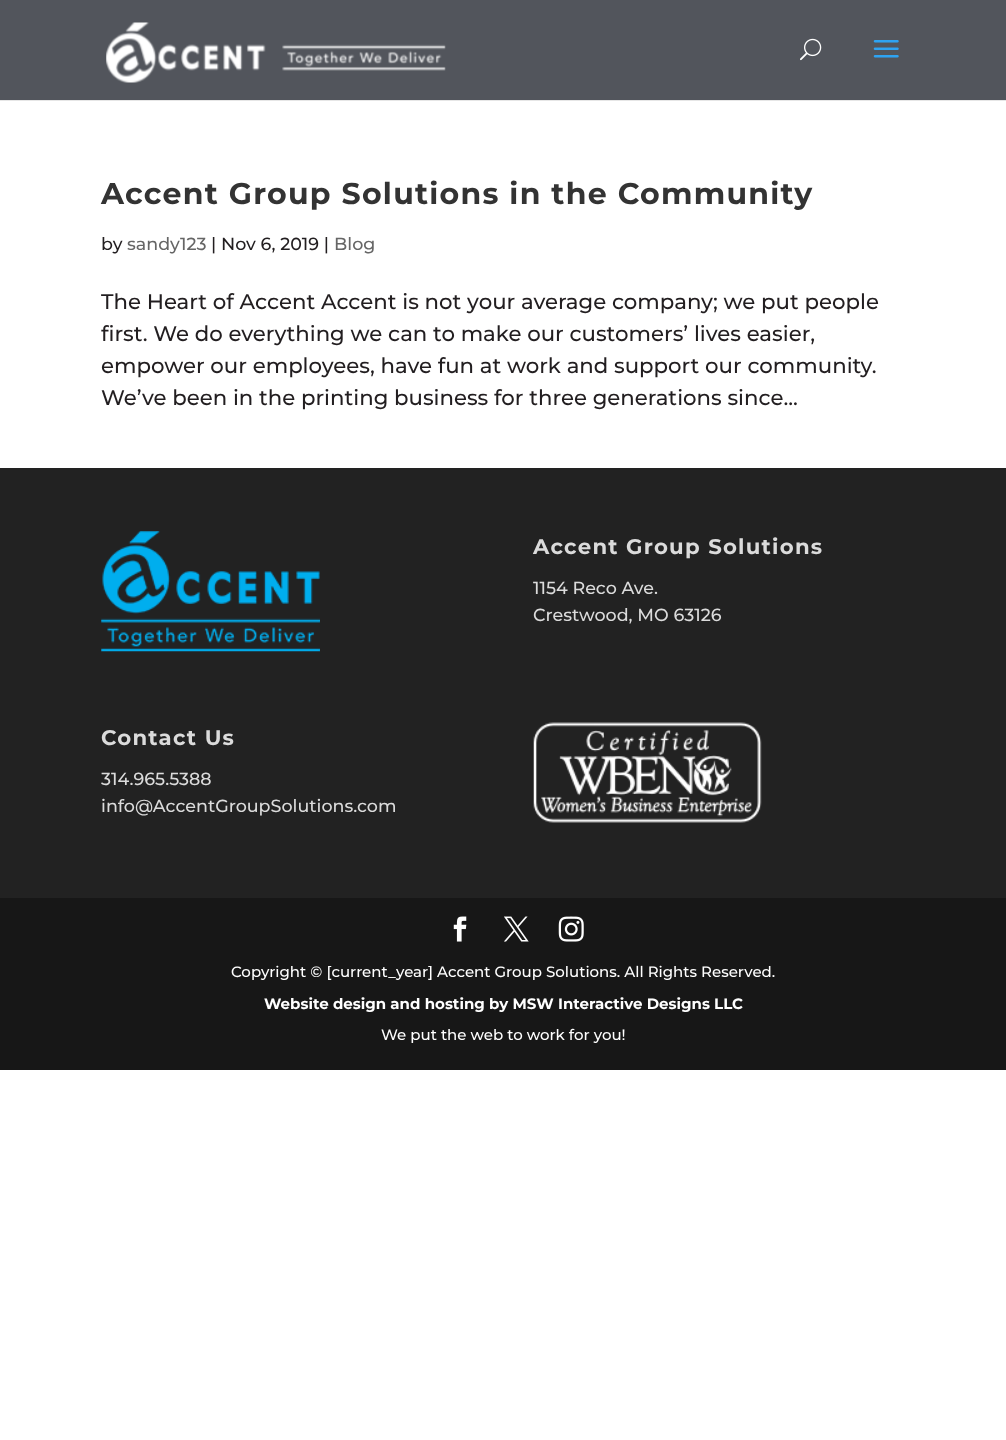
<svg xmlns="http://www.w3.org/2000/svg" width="1006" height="1440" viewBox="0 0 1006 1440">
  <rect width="100%" height="100%" fill="#ffffff"/>
  <rect x="0" y="100" width="1006" height="1" fill="#e6e6e6"/>
  <rect x="0" y="0" width="1006" height="100" fill="#52555c"/>
  <image x="106" y="22" width="340" height="61" href="img1.png"/>
  <image x="800" y="38" width="22" height="23" href="img2.png"/>
  <image x="873" y="40" width="26" height="18" href="img3.png"/>
  <text x="101" y="204" font-family="Montserrat" font-size="30" font-weight="bold" letter-spacing="1.25" fill="#333333">Accent Group Solutions in the Community</text>
  <text x="101" y="250" font-family="Montserrat" font-size="17.5" font-weight="500" fill="#221e20">by</text>
  <text x="127" y="250" font-family="Montserrat" font-size="17.5" font-weight="500" fill="#666666">sandy123</text>
  <text x="211" y="250" font-family="Montserrat" font-size="17.5" font-weight="500" fill="#221e20">| Nov 6, 2019 |</text>
  <text x="334" y="250" font-family="Montserrat" font-size="17.5" font-weight="500" fill="#666666">Blog</text>
  <text x="101" y="309" font-family="Montserrat" font-size="21.25" font-weight="500" fill="#221e20">The Heart of Accent Accent is not your average company; we put people</text>
  <text x="101" y="341" font-family="Montserrat" font-size="21.25" font-weight="500" fill="#221e20">first. We do everything we can to make our customers’ lives easier,</text>
  <text x="101" y="373" font-family="Montserrat" font-size="21.25" font-weight="500" fill="#221e20">empower our employees, have fun at work and support our community.</text>
  <text x="101" y="405" font-family="Montserrat" font-size="21.25" font-weight="500" fill="#221e20">We’ve been in the printing business for three generations since...</text>
  <rect x="0" y="468" width="1006" height="430" fill="#222222"/>
  <image x="101" y="531" width="219" height="121" href="img4.png"/>
  <text x="533" y="554" font-family="Montserrat" font-size="21.25" font-weight="bold" letter-spacing="1.25" fill="#dbdbdb">Accent Group Solutions</text>
  <text x="533" y="594" font-family="Montserrat" font-size="17.5" font-weight="500" fill="#dbdbdb">1154 Reco Ave.</text>
  <text x="533" y="621" font-family="Montserrat" font-size="17.5" font-weight="500" fill="#dbdbdb">Crestwood, MO 63126</text>
  <text x="101" y="745" font-family="Montserrat" font-size="21.25" font-weight="bold" letter-spacing="1.25" fill="#dbdbdb">Contact Us</text>
  <text x="101" y="785" font-family="Montserrat" font-size="17.5" font-weight="500" fill="#dbdbdb">314.965.5388</text>
  <text x="101" y="812" font-family="Montserrat" font-size="17.5" font-weight="500" fill="#dbdbdb">info@AccentGroupSolutions.com</text>
  <image x="533" y="722" width="229" height="101" href="img5.png"/>
  <rect x="0" y="898" width="1006" height="172" fill="#171717"/>
  <image x="453" y="916" width="14" height="26" href="img6.png"/>
  <image x="504" y="916" width="25" height="26" href="img7.png"/>
  <image x="558" y="916" width="26" height="26" href="img8.png"/>
  <text x="231" y="977" font-family="Montserrat" font-size="15" font-weight="500" fill="#ffffff">Copyright © [current_year] Accent Group Solutions. All Rights Reserved.</text>
  <text x="264" y="1009" font-family="Montserrat" font-size="15" font-weight="bold" fill="#ffffff">Website design and hosting by MSW Interactive Designs LLC</text>
  <text x="381" y="1040" font-family="Montserrat" font-size="15" font-weight="500" fill="#ffffff">We put the web to work for you!</text>
</svg>
